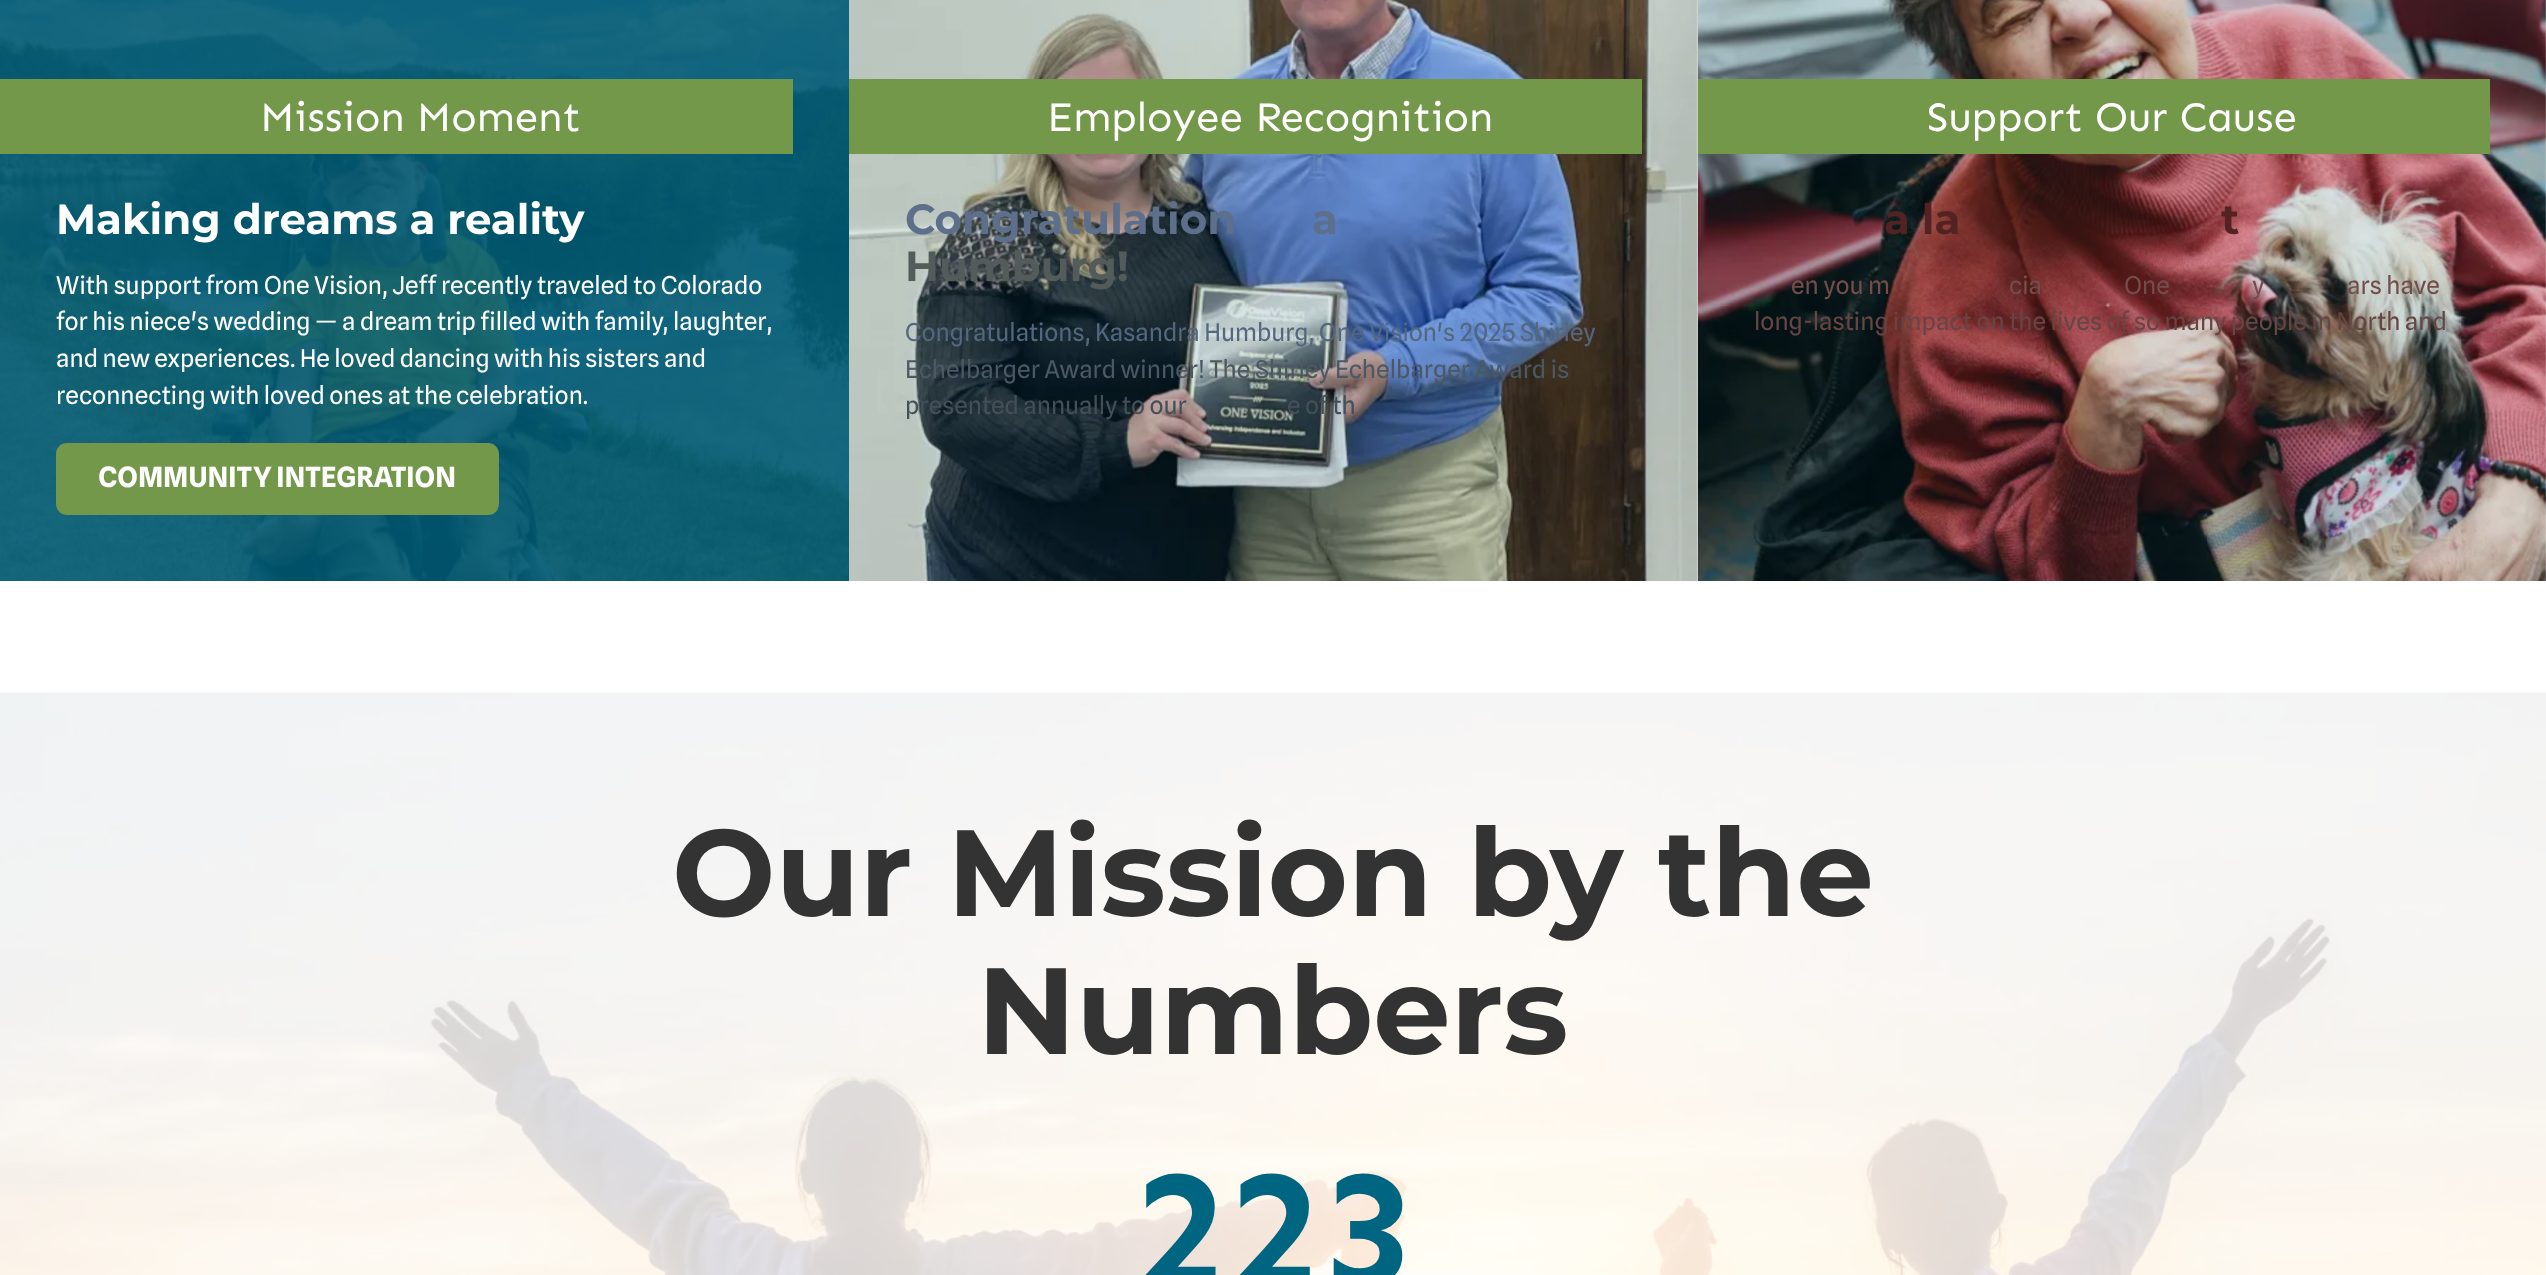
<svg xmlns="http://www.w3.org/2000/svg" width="2546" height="1275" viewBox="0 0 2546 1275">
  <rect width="100%" height="100%" fill="#ffffff"/>
  <image x="0" y="0" width="849" height="581" href="img1.png"/>
  <rect x="0" y="79" width="793" height="75" fill="#73984a"/>
  <text x="260" y="131" font-family="Sen" font-size="42" fill="#ffffff">Mission Moment</text>
  <text x="56" y="234" font-family="Montserrat" font-size="42" font-weight="bold" fill="#ffffff">Making dreams a reality</text>
  <text x="56" y="294" font-family="Spline Sans" font-size="24.5" fill="#ffffff">With support from One Vision, Jeff recently traveled to Colorado</text>
  <text x="56" y="330" font-family="Spline Sans" font-size="24.5" fill="#ffffff">for his niece's wedding — a dream trip filled with family, laughter,</text>
  <text x="56" y="367" font-family="Spline Sans" font-size="24.5" fill="#ffffff">and new experiences. He loved dancing with his sisters and</text>
  <text x="56" y="404" font-family="Spline Sans" font-size="24.5" fill="#ffffff">reconnecting with loved ones at the celebration.</text>
  <rect x="56" y="443" width="443" height="72" rx="11" fill="#73984a"/>
  <text x="98" y="487" font-family="Spline Sans" font-size="28" font-weight="bold" fill="#ffffff">COMMUNITY INTEGRATION</text>
  <image x="849" y="0" width="849" height="581" href="img2.png"/>
  <rect x="849" y="79" width="793" height="75" fill="#73984a"/>
  <text x="1047" y="131" font-family="Sen" font-size="42" fill="#ffffff">Employee Recognition</text>
  <text x="905" y="234" font-family="Montserrat" font-size="42" font-weight="bold" fill="#5d6f8a">Congratulation</text>
  <text x="1312" y="234" font-family="Montserrat" font-size="42" font-weight="bold" fill="#5d6f8a">a</text>
  <text x="905" y="281" font-family="Montserrat" font-size="42" font-weight="bold" fill="#535b5b">Humburg!</text>
  <text x="905" y="341" font-family="Spline Sans" font-size="24.5" fill="#53677e">Congratulations, Kasandra Humburg, One Vision's 2025 Shirley</text>
  <text x="905" y="378" font-family="Spline Sans" font-size="24.5" fill="#4c5863">Echelbarger Award winner! The Shirley Echelbarger Award is</text>
  <text x="905" y="414" font-family="Spline Sans" font-size="24.5" fill="#444f57">presented annually to our</text>
  <text x="1287" y="414" font-family="Spline Sans" font-size="24.5" fill="#444f57">e of th</text>
  <image x="1698" y="0" width="848" height="581" href="img3.png"/>
  <rect x="1698" y="79" width="792" height="75" fill="#73984a"/>
  <text x="1927" y="131" font-family="Sen" font-size="42" fill="#ffffff">Support Our Cause</text>
  <text x="1884" y="234" font-family="Montserrat" font-size="42" font-weight="bold" fill="#532324">a la</text>
  <text x="2221" y="234" font-family="Montserrat" font-size="42" font-weight="bold" fill="#532324">t</text>
  <text x="1791" y="294" font-family="Spline Sans" font-size="24.5" fill="#734c4c">en you m</text>
  <text x="2009" y="294" font-family="Spline Sans" font-size="24.5" fill="#734c4c">cia</text>
  <text x="2124" y="294" font-family="Spline Sans" font-size="24.5" fill="#734c4c">One</text>
  <text x="2252" y="294" font-family="Spline Sans" font-size="24.5" fill="#734c4c">y</text>
  <text x="2347" y="294" font-family="Spline Sans" font-size="24.5" fill="#734c4c">ars have</text>
  <text x="1754" y="330" font-family="Spline Sans" font-size="24.5" fill="#674545">long-lasting impact on the lives of so many people in North and</text>
  <image x="0" y="692" width="2546" height="583" href="img4.png"/>
  <text x="672" y="916" font-family="Montserrat" font-size="122.5" font-weight="bold" fill="#333333">Our Mission by the</text>
  <text x="977" y="1054" font-family="Montserrat" font-size="122.5" font-weight="bold" fill="#333333">Numbers</text>
  <text x="1132" y="1286" font-family="Sen" font-size="168" font-weight="bold" fill="#006580">223</text>
</svg>
